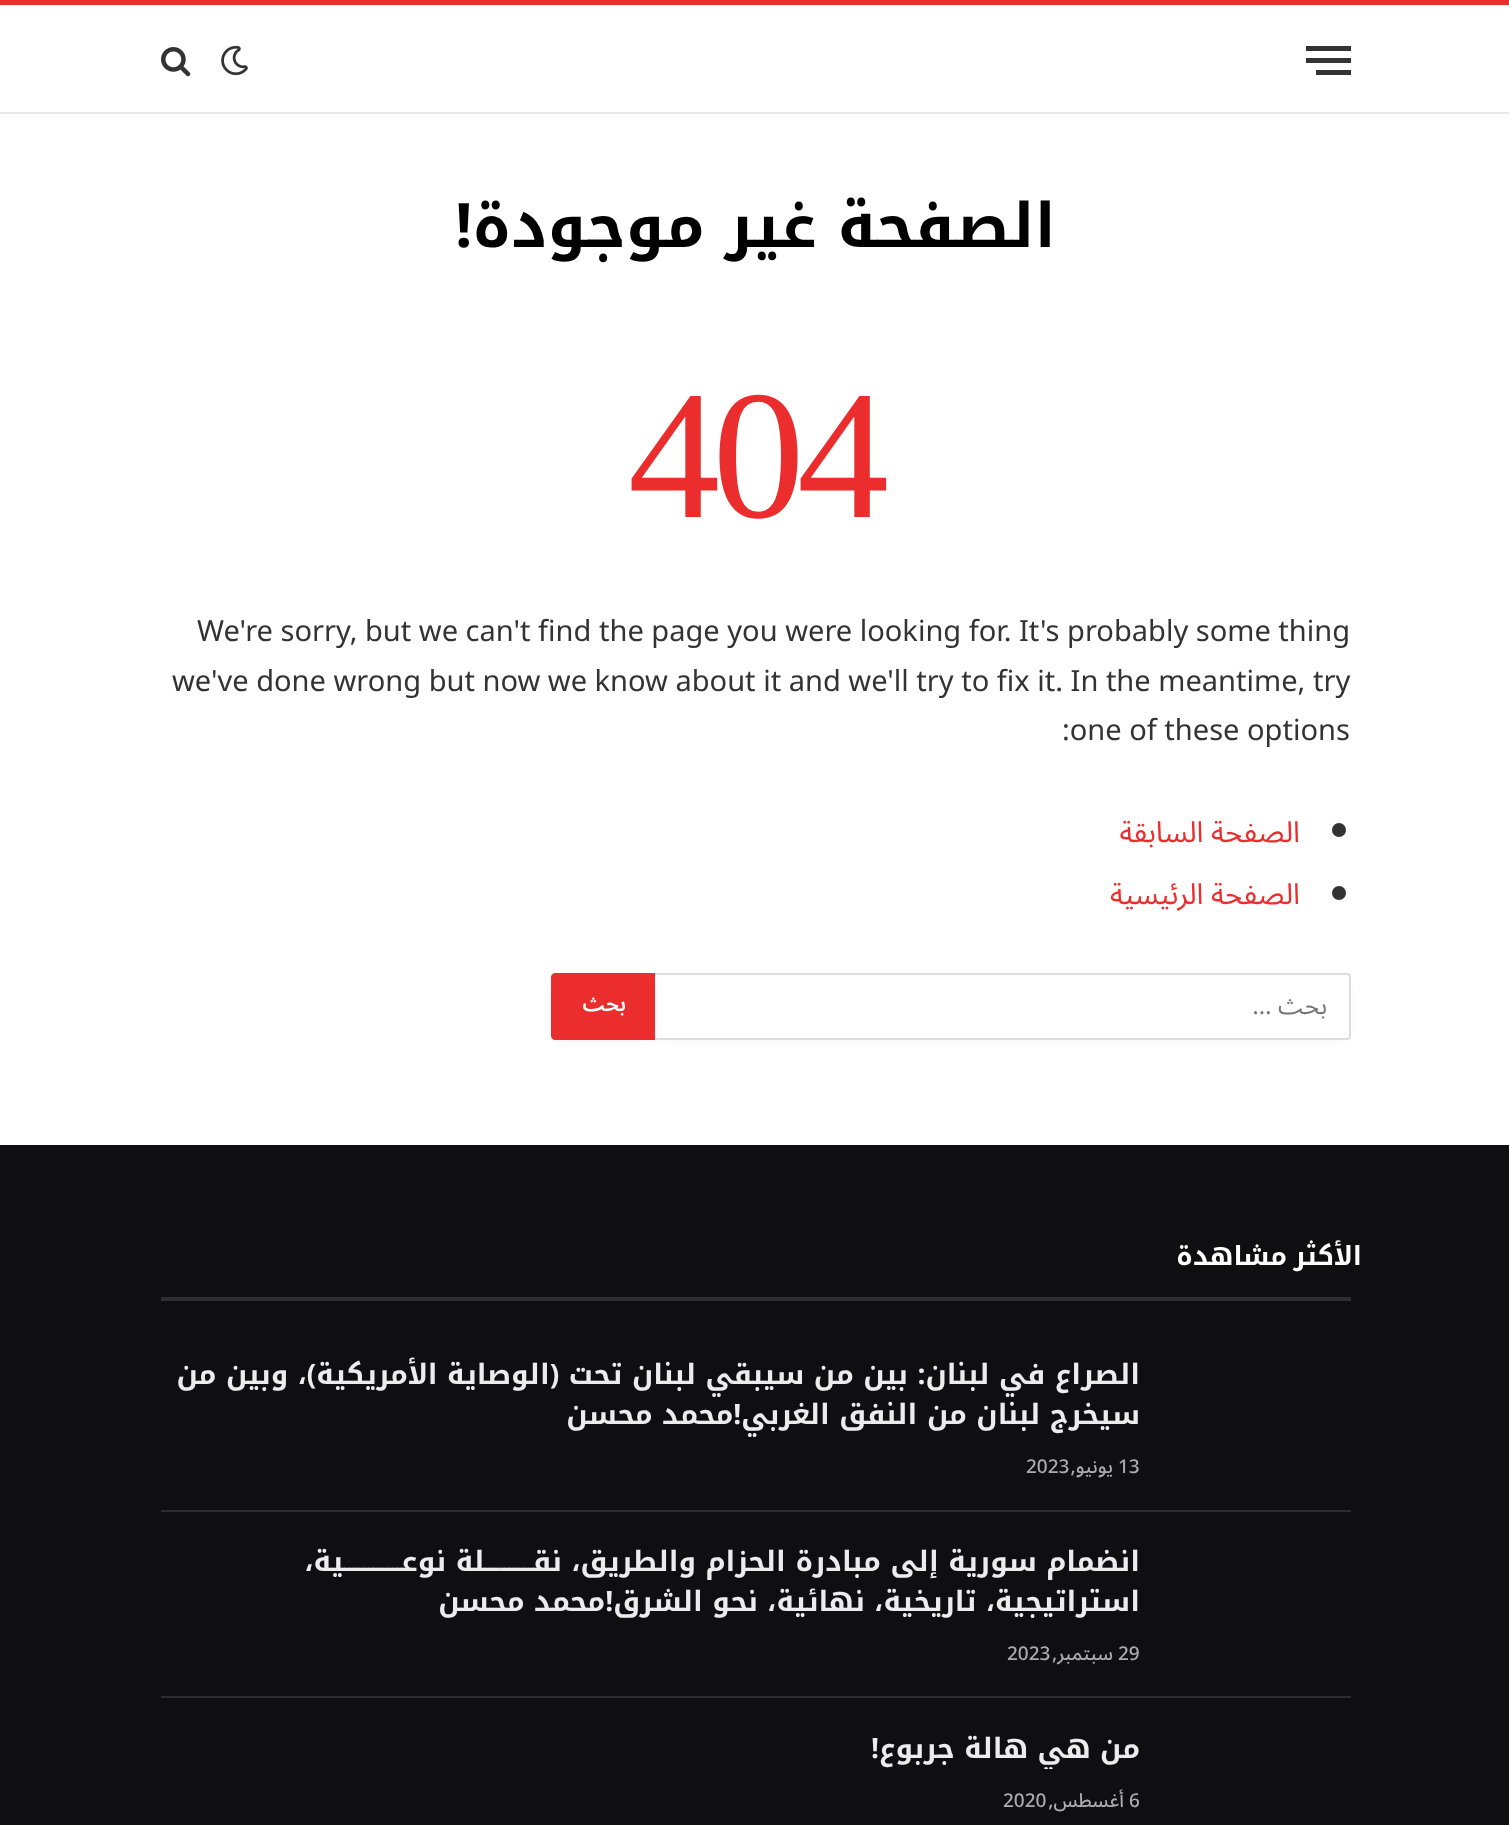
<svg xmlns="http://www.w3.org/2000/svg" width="1509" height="1825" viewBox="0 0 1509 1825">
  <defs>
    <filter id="blur1" x="-50%" y="-200%" width="200%" height="500%"><feGaussianBlur stdDeviation="6"/></filter>
    <clipPath id="clip1"><rect x="161" y="1729" width="980" height="40"/></clipPath>
  </defs>
  <rect width="100%" height="100%" fill="#ffffff"/>
  <rect x="0" y="0" width="1509" height="5" fill="#eb2e2d"/>
  <rect x="0" y="112" width="1509" height="2" fill="#e8e8e8"/>
  <rect x="1316" y="70" width="35" height="5" fill="#333333"/>
  <rect x="1306" y="46" width="45" height="5" fill="#333333"/>
  <rect x="1306" y="58" width="45" height="5" fill="#333333"/>
  <image x="221" y="45" width="27" height="31" href="img1.png"/>
  <image x="161" y="47" width="30" height="30" href="img2.png"/>
  <text x="1056" y="247" font-family="Noto Kufi Arabic" font-size="61.25" font-weight="bold" direction="rtl" fill="#000000">الصفحة غير موجودة!</text>
  <text x="628" y="517" font-family="Liberation Serif" font-size="184" letter-spacing="-7.5" fill="#eb2e2d">404</text>
  <text x="197" y="641" font-family="Noto Sans Arabic" font-size="29.05" fill="#333333">We're sorry, but we can't find the page you were looking for. It's probably some thing</text>
  <text x="172" y="691" font-family="Noto Sans Arabic" font-size="29.05" fill="#333333">we've done wrong but now we know about it and we'll try to fix it. In the meantime, try</text>
  <text x="1062" y="740" font-family="Noto Sans Arabic" font-size="29.05" fill="#333333">:one of these options</text>
  <circle cx="1339" cy="830" r="7" fill="#333333"/>
  <text x="1300" y="842" font-family="Noto Sans Arabic" font-size="29.05" direction="rtl" fill="#eb2e2d">الصفحة السابقة</text>
  <circle cx="1339" cy="893" r="7" fill="#333333"/>
  <text x="1300" y="904" font-family="Noto Sans Arabic" font-size="29.05" direction="rtl" fill="#eb2e2d">الصفحة الرئيسية</text>
  <rect x="658" y="984" width="686" height="52" fill="#000000" fill-opacity="0.1" filter="url(#blur1)"/>
  <rect x="652" y="974" width="698" height="65" rx="3" fill="#ffffff" stroke="#dddddd" stroke-width="2"/>
  <text x="1327" y="1014" font-family="Noto Sans Arabic" font-size="24.5" direction="rtl" fill="#777777">بحث …</text>
  <rect x="558" y="984" width="90" height="52" fill="#000000" fill-opacity="0.16" filter="url(#blur1)"/>
  <path d="M555 973H655V1040H555C553 1040 551 1038 551 1036V977C551 975 553 973 555 973Z" fill="#eb2e2d"/>
  <text x="626" y="1011" font-family="Noto Sans Arabic" font-size="21" font-weight="600" letter-spacing="0.5" direction="rtl" fill="#ffffff">بحث</text>
  <rect x="0" y="1145" width="1509" height="680" fill="#0f0f11"/>
  <rect x="161" y="1297" width="1190" height="4" fill="#2e2e30"/>
  <text x="1362" y="1265" word-spacing="-2" font-family="Noto Kufi Arabic" font-size="26.25" font-weight="bold" letter-spacing="1" direction="rtl" fill="#ffffff">الأكثر مشاهدة</text>
  <text x="1140" y="1384" font-family="Noto Kufi Arabic" font-size="28" font-weight="bold" direction="rtl" fill="#ececec">الصراع في لبنان: بين من سيبقي لبنان تحت (الوصاية الأمريكية)، وبين من</text>
  <text x="1140" y="1424" font-family="Noto Kufi Arabic" font-size="28" font-weight="bold" direction="rtl" fill="#ececec">سيخرج لبنان من النفق الغربي!محمد محسن</text>
  <text x="1118" y="1473" font-family="Noto Sans Arabic" font-size="19" font-weight="500" fill="#ababac">13</text>
  <text x="1113" y="1473" font-family="Noto Sans Arabic" font-size="19" font-weight="500" direction="rtl" fill="#ababac">يونيو,</text>
  <text x="1026" y="1473" font-family="Noto Sans Arabic" font-size="19" font-weight="500" fill="#ababac">2023</text>
  <rect x="161" y="1510" width="1190" height="2" fill="#2e2e30"/>
  <text x="1140" y="1571" font-family="Noto Kufi Arabic" font-size="28" font-weight="bold" direction="rtl" fill="#ececec">انضمام سورية إلى مبادرة الحزام والطريق، نقــــــــــلة نوعــــــــــــية،</text>
  <text x="1140" y="1611" font-family="Noto Kufi Arabic" font-size="28" font-weight="bold" direction="rtl" fill="#ececec">استراتيجية، تاريخية، نهائية، نحو الشرق!محمد محسن</text>
  <text x="1118" y="1660" font-family="Noto Sans Arabic" font-size="19" font-weight="500" fill="#ababac">29</text>
  <text x="1113" y="1660" font-family="Noto Sans Arabic" font-size="19" font-weight="500" direction="rtl" fill="#ababac">سبتمبر,</text>
  <text x="1007" y="1660" font-family="Noto Sans Arabic" font-size="19" font-weight="500" fill="#ababac">2023</text>
  <rect x="161" y="1696" width="1190" height="2" fill="#2e2e30"/>
  <g clip-path="url(#clip1)">
    <text x="1140" y="1758" font-family="Noto Kufi Arabic" font-size="28" font-weight="bold" direction="rtl" fill="#ececec">من هي هالة جربوع!</text>
  </g>
  <text x="1129" y="1807" font-family="Noto Sans Arabic" font-size="19" font-weight="500" fill="#ababac">6</text>
  <text x="1124" y="1807" font-family="Noto Sans Arabic" font-size="19" font-weight="500" direction="rtl" fill="#ababac">أغسطس,</text>
  <text x="1003" y="1807" font-family="Noto Sans Arabic" font-size="19" font-weight="500" fill="#ababac">2020</text>
</svg>
